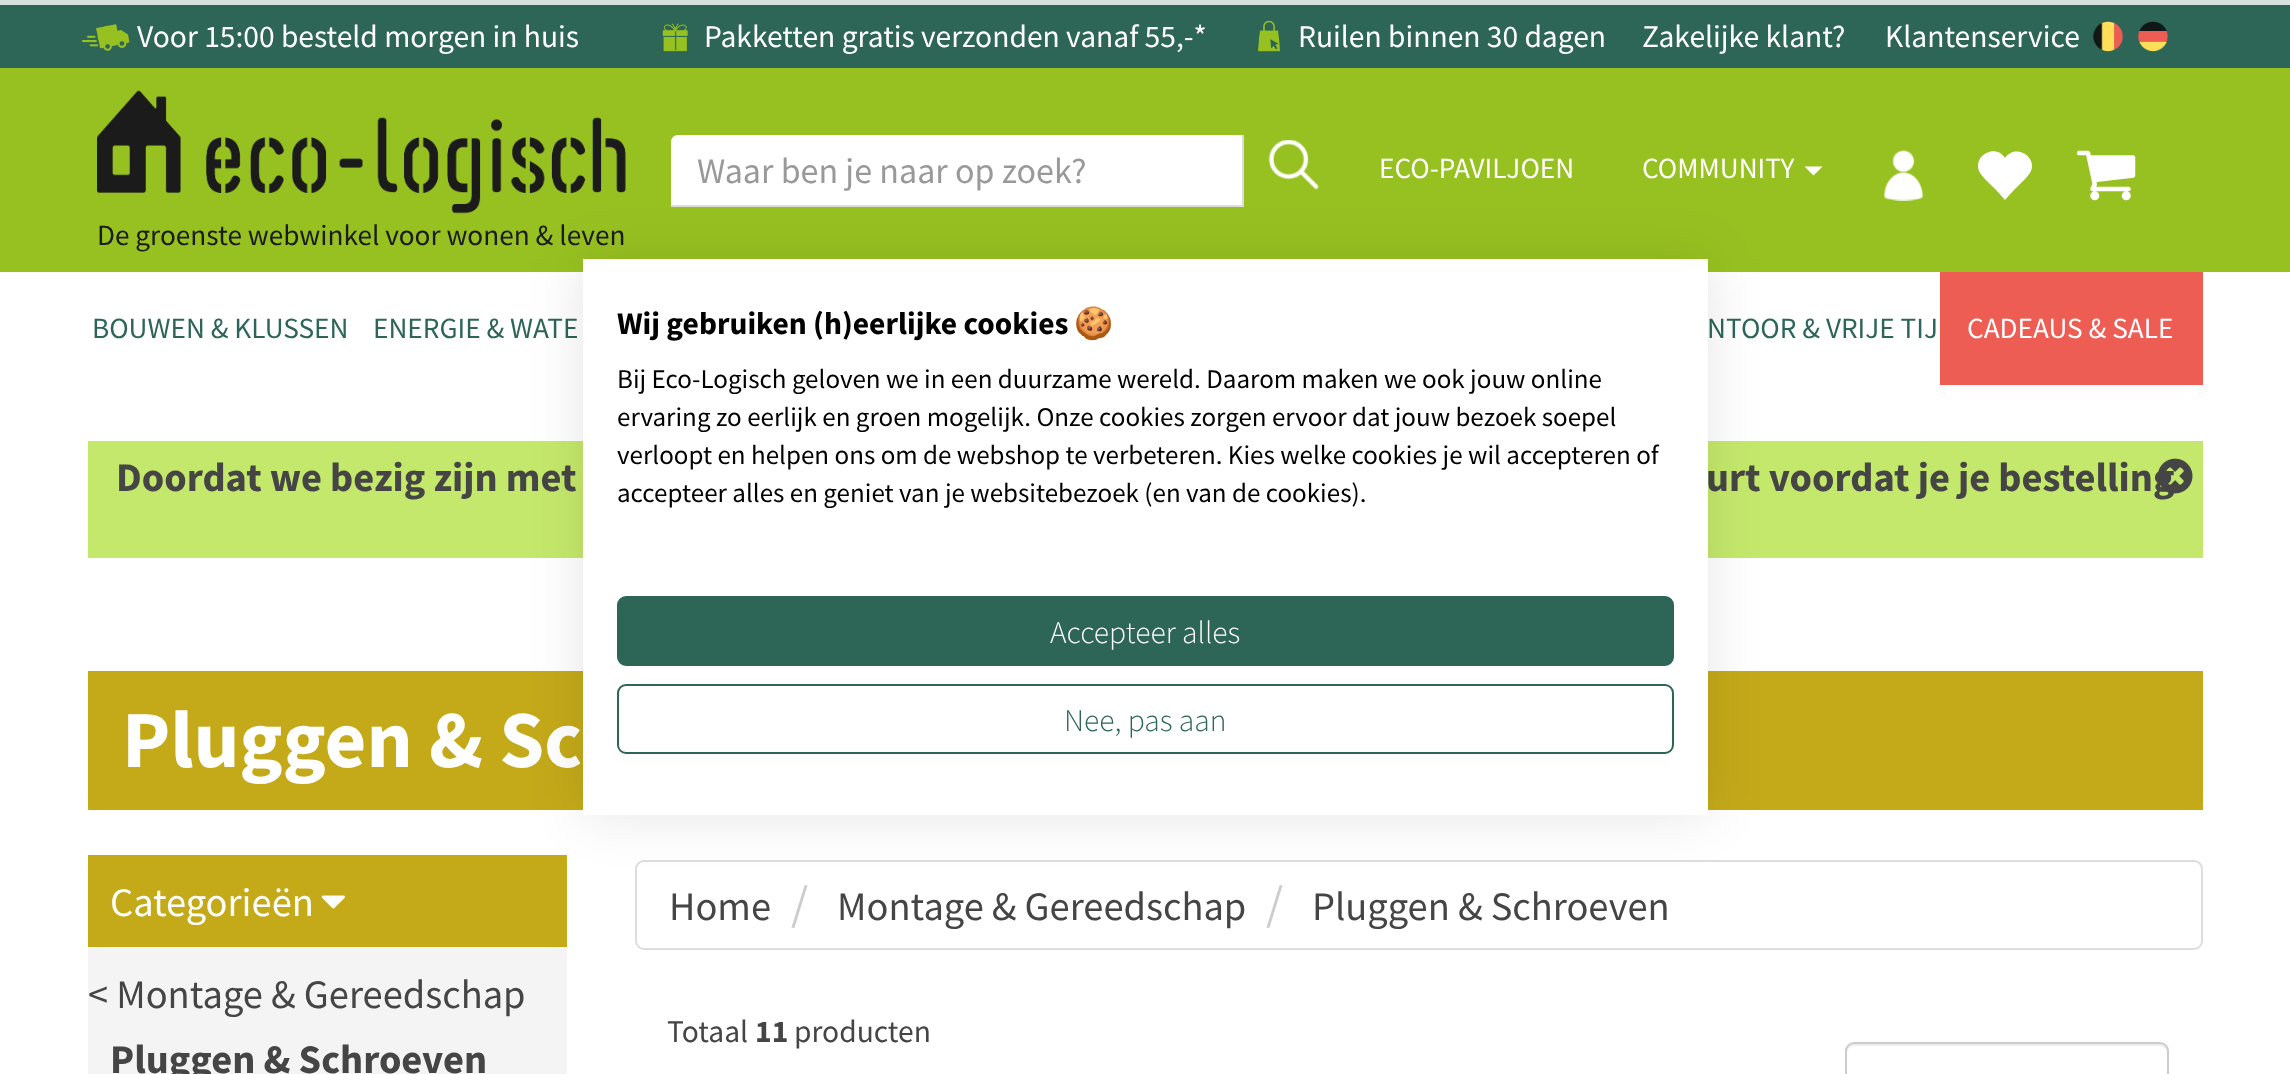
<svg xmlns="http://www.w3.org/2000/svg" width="2290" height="1074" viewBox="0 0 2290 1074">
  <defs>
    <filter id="blur1" x="-50%" y="-200%" width="200%" height="500%"><feGaussianBlur stdDeviation="27"/></filter>
  </defs>
  <rect width="100%" height="100%" fill="#ffffff"/>
  <rect x="0" y="0" width="2290" height="5" fill="#d5e0dd"/>
  <rect x="0" y="68" width="2290" height="204" fill="#97c121"/>
  <rect x="0" y="5" width="2290" height="63" fill="#2d6557"/>
  <image x="81" y="24" width="49" height="27" href="img1.png"/>
  <text x="137" y="47" font-family="Source Sans Pro" font-size="31.5" fill="#ffffff">Voor 15:00 besteld morgen in huis</text>
  <image x="662" y="23" width="26" height="29" href="img2.png"/>
  <text x="704" y="47" font-family="Source Sans Pro" font-size="31.5" fill="#ffffff">Pakketten gratis verzonden vanaf 55,-*</text>
  <image x="1258" y="20" width="22" height="32" href="img3.png"/>
  <text x="1298" y="47" font-family="Source Sans Pro" font-size="31.5" fill="#ffffff">Ruilen binnen 30 dagen</text>
  <text x="1642" y="47" font-family="Source Sans Pro" font-size="31.5" fill="#ffffff">Zakelijke klant?</text>
  <text x="1885" y="47" font-family="Source Sans Pro" font-size="31.5" fill="#ffffff">Klantenservice</text>
  <image x="2093" y="21" width="31" height="31" href="img4.png"/>
  <image x="2138" y="21" width="31" height="31" href="img5.png"/>
  <path d="M678 135H1244V207H671V142C671 138 674 135 678 135Z" fill="#ffffff"/>
  <rect x="1242" y="135" width="2" height="72" fill="#dddddd"/>
  <rect x="671" y="205" width="573" height="2" fill="#dddddd"/>
  <text x="697" y="183" font-family="Source Sans Pro" font-size="36" fill="#999999">Waar ben je naar op zoek?</text>
  <image x="1268" y="140" width="51" height="50" href="img6.png"/>
  <text x="1379" y="178" font-family="Source Sans Pro" font-size="29.25" fill="#ffffff">ECO-PAVILJOEN</text>
  <text x="1642" y="178" font-family="Source Sans Pro" font-size="29.25" fill="#ffffff">COMMUNITY</text>
  <path d="M1804.5 166.5H1822.5L1813.5 175.5Z" fill="#ffffff"/>
  <image x="1883" y="150" width="41" height="51" href="img7.png"/>
  <path d="M2005 158C2016 143 2037 157 2031 171C2028 177 2022 182 2018 186C2013 191 2009 195 2005 200C2001 195 1997 191 1992 186C1988 182 1982 177 1979 171C1973 156 1995 143 2005 158Z" fill="#ffffff"/>
  <image x="2076" y="150" width="60" height="51" href="img8.png"/>
  <image x="97" y="90" width="529" height="124" href="img9.png"/>
  <text x="97" y="245" font-family="Source Sans Pro" font-size="29.25" fill="#1b1b1b">De groenste webwinkel voor wonen &amp; leven</text>
  <text x="92" y="338" font-family="Source Sans Pro" font-size="29.25" fill="#2d6557">BOUWEN &amp; KLUSSEN</text>
  <text x="373" y="338" font-family="Source Sans Pro" font-size="29.25" fill="#2d6557">ENERGIE &amp; WATE</text>
  <text x="1707" y="338" font-family="Source Sans Pro" font-size="29.25" fill="#2d6557">NTOOR &amp; VRIJE TIJ</text>
  <rect x="1940" y="272" width="263" height="113" fill="#ed5d54"/>
  <text x="1967" y="338" font-family="Source Sans Pro" font-size="29.25" fill="#ffffff">CADEAUS &amp; SALE</text>
  <rect x="88" y="441" width="2115" height="117" fill="#c4e86b"/>
  <text x="116" y="491" font-family="Source Sans Pro" font-size="40.5" font-weight="bold" fill="#454545">Doordat we bezig zijn met</text>
  <text x="1706" y="491" font-family="Source Sans Pro" font-size="40.5" font-weight="bold" fill="#454545">urt voordat je je bestelling</text>
  <image x="2158" y="458" width="35" height="36" href="img10.png"/>
  <rect x="88" y="671" width="2115" height="139" fill="#c4a919"/>
  <text x="122" y="767" font-family="Source Sans Pro" font-size="81" font-weight="bold" fill="#ffffff">Pluggen &amp; Sc</text>
  <rect x="88" y="947" width="479" height="127" fill="#f4f4f4"/>
  <rect x="88" y="855" width="479" height="92" fill="#c4a919"/>
  <text x="110" y="916" font-family="Source Sans Pro" font-size="40.5" fill="#ffffff">Categorieën</text>
  <image x="321" y="895" width="24" height="14" href="img11.png"/>
  <text x="88" y="1008" font-family="Source Sans Pro" font-size="40.5" fill="#454545">&lt; Montage &amp; Gereedschap</text>
  <text x="110" y="1073" font-family="Source Sans Pro" font-size="40.5" font-weight="bold" fill="#454545">Pluggen &amp; Schroeven</text>
  <rect x="636" y="861" width="1566" height="88" rx="8" fill="none" stroke="#dddddd" stroke-width="2"/>
  <text x="669" y="920" font-family="Source Sans Pro" font-size="40.5" fill="#454545">Home</text>
  <text x="791" y="920" font-family="Source Sans Pro" font-size="49" fill="#cccccc">/</text>
  <text x="837" y="920" font-family="Source Sans Pro" font-size="40.5" fill="#454545">Montage &amp; Gereedschap</text>
  <text x="1266" y="920" font-family="Source Sans Pro" font-size="49" fill="#cccccc">/</text>
  <text x="1312" y="920" font-family="Source Sans Pro" font-size="40.5" fill="#454545">Pluggen &amp; Schroeven</text>
  <text x="667" y="1042" font-family="Source Sans Pro" font-size="31.5" fill="#454545">Totaal</text>
  <text x="755" y="1042" font-family="Source Sans Pro" font-size="31.5" font-weight="bold" fill="#454545">11</text>
  <text x="794" y="1042" font-family="Source Sans Pro" font-size="31.5" fill="#454545">producten</text>
  <path d="M1854 1046H2160C2164 1046 2167 1049 2167 1053V1051C2167 1047 2164 1044 2160 1044H1854C1850 1044 1847 1047 1847 1051V1053C1847 1049 1850 1046 1854 1046Z" fill="#ececec"/>
  <rect x="1846" y="1043" width="322" height="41" rx="8" fill="none" stroke="#cccccc" stroke-width="2"/>
  <rect x="583" y="259" width="1125" height="556" fill="#000000" fill-opacity="0.1" filter="url(#blur1)"/>
  <rect x="583" y="259" width="1125" height="556" fill="#ffffff"/>
  <text x="617" y="334" font-family="Source Sans Pro" font-size="31.5" font-weight="bold" fill="#000000">Wij gebruiken (h)eerlijke cookies</text>
  <text x="1074" y="334" font-family="Noto Color Emoji" font-size="31.5" font-weight="bold" fill="#000000">🍪</text>
  <text x="617" y="388" font-family="Source Sans Pro" font-size="27" fill="#000000">Bij Eco-Logisch geloven we in een duurzame wereld. Daarom maken we ook jouw online</text>
  <text x="617" y="426" font-family="Source Sans Pro" font-size="27" fill="#000000">ervaring zo eerlijk en groen mogelijk. Onze cookies zorgen ervoor dat jouw bezoek soepel</text>
  <text x="617" y="464" font-family="Source Sans Pro" font-size="27" fill="#000000">verloopt en helpen ons om de webshop te verbeteren. Kies welke cookies je wil accepteren of</text>
  <text x="617" y="502" font-family="Source Sans Pro" font-size="27" fill="#000000">accepteer alles en geniet van je websitebezoek (en van de cookies).</text>
  <rect x="618" y="597" width="1055" height="68" rx="8" fill="#2d6557" stroke="#2d6557" stroke-width="2"/>
  <text x="1050" y="643" font-family="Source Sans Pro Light" font-size="31.5" font-weight="300" fill="#ffffff">Accepteer alles</text>
  <rect x="618" y="685" width="1055" height="68" rx="8" fill="none" stroke="#2d6557" stroke-width="2"/>
  <text x="1064" y="731" font-family="Source Sans Pro Light" font-size="31.5" font-weight="300" fill="#2d6557">Nee, pas aan</text>
</svg>
